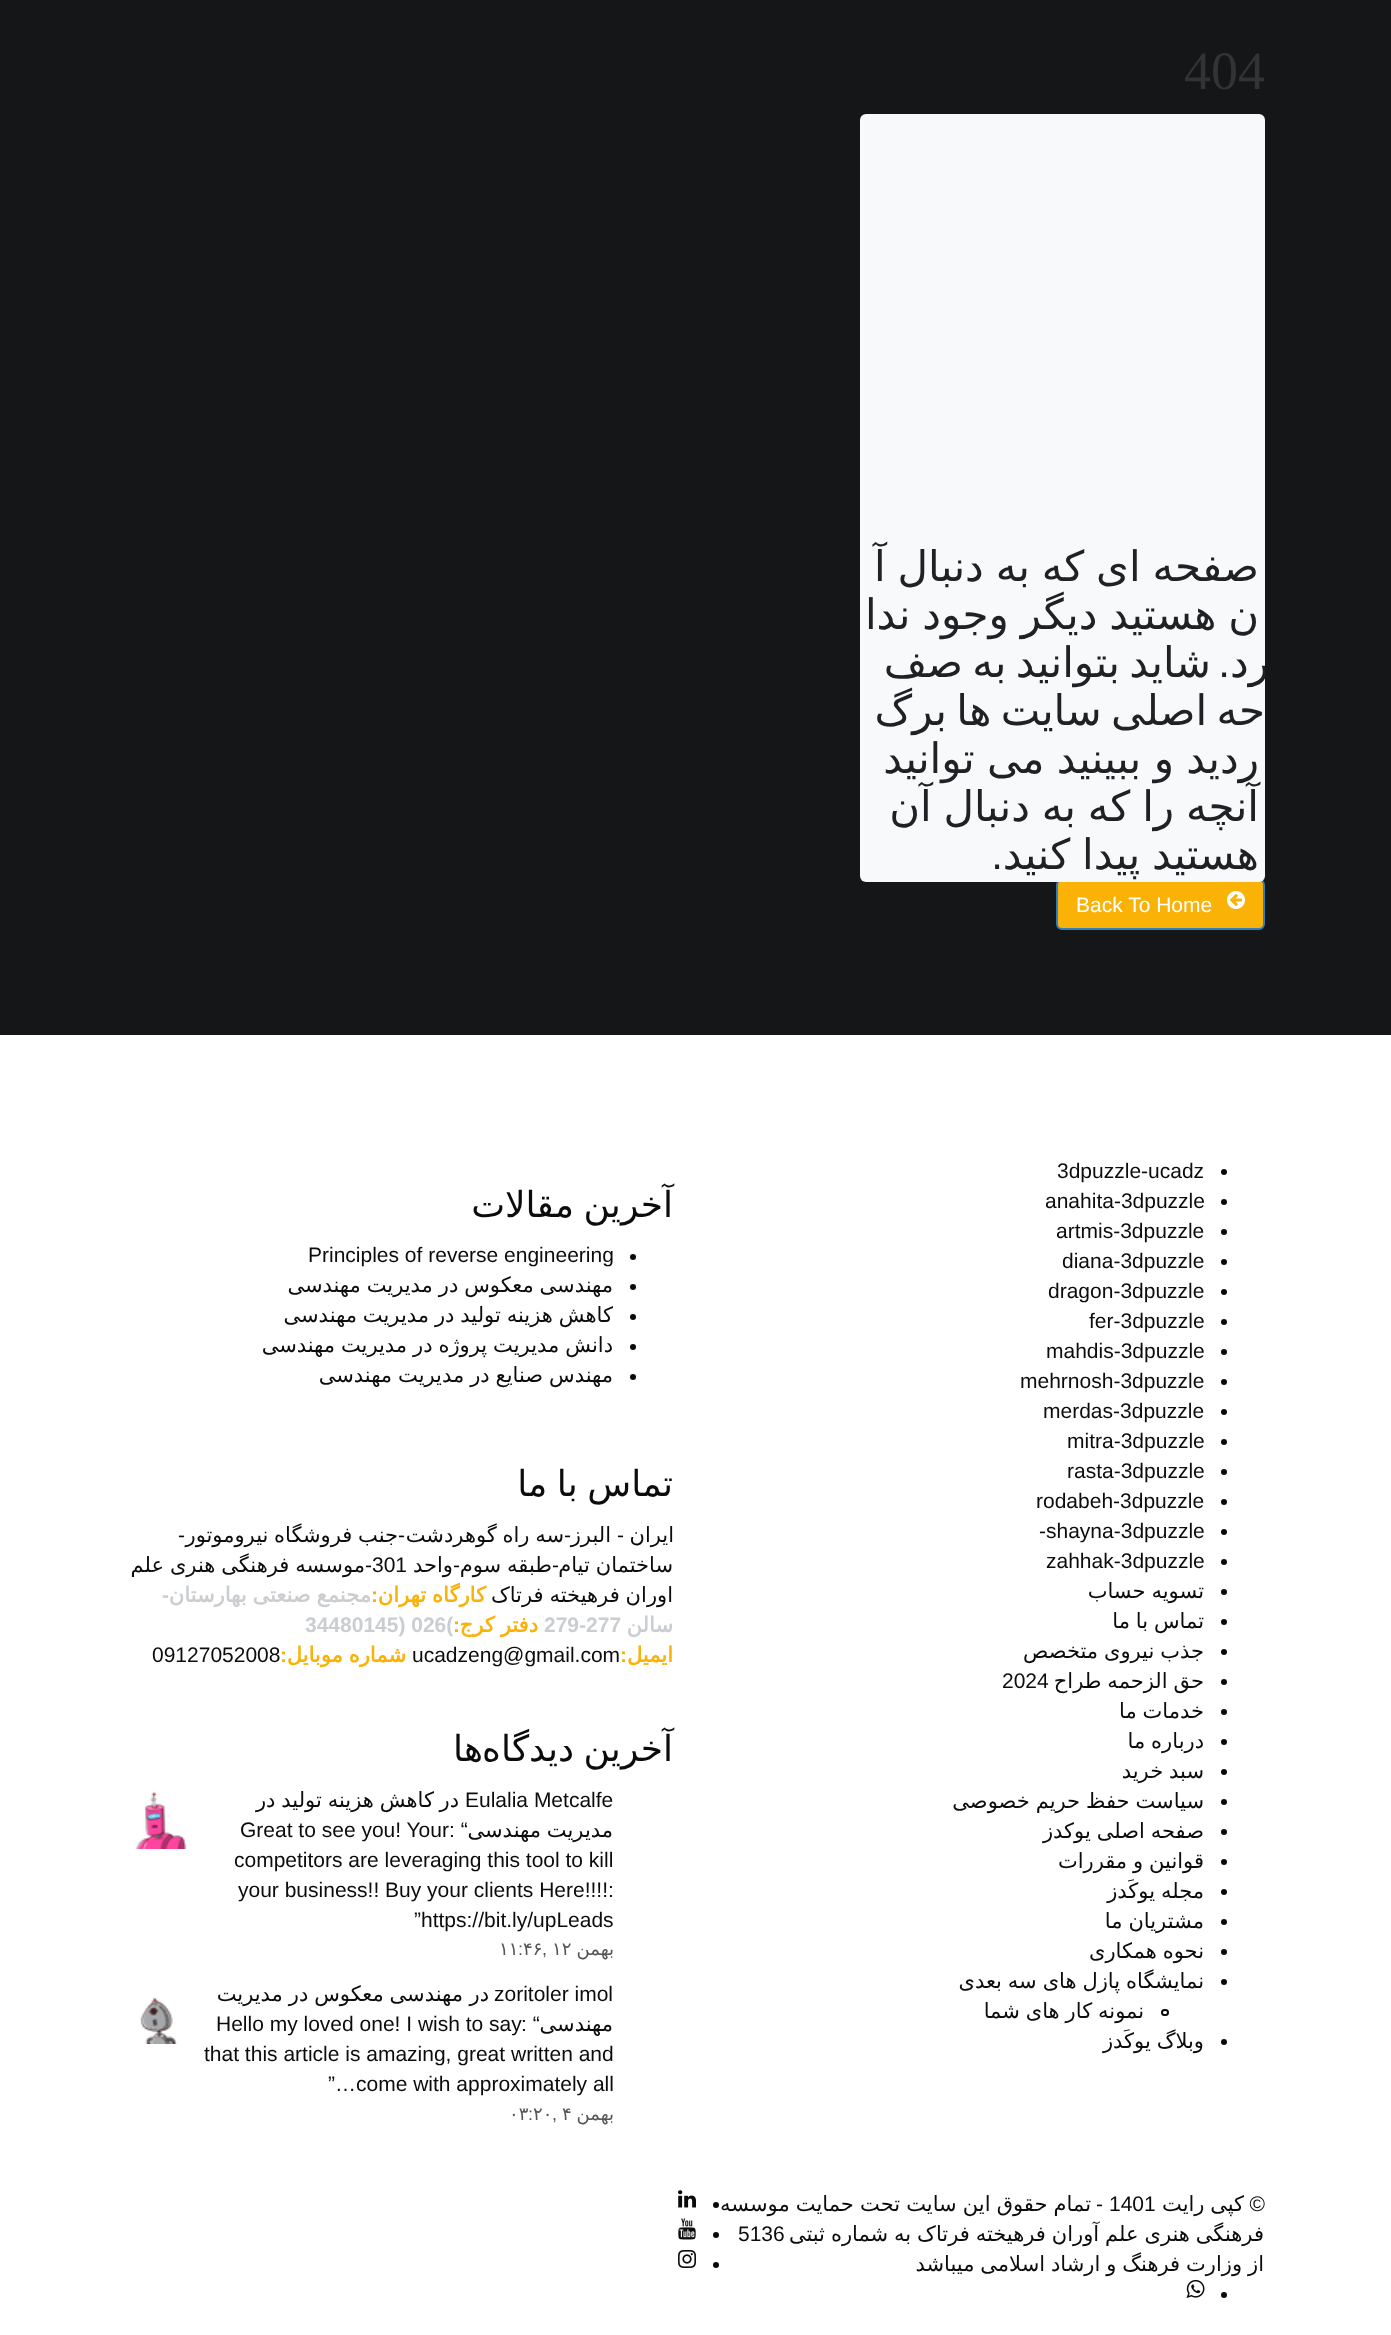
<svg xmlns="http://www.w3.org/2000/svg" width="1391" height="2335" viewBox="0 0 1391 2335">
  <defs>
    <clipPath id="clip1"><rect x="860" y="114" width="405" height="768" rx="6"/></clipPath>
  </defs>
  <rect width="100%" height="100%" fill="#151618"/>
  <text x="1184" y="89" font-family="Liberation Serif" font-size="54" fill="#333333">404</text>
  <rect x="1057" y="880" width="207" height="49" rx="5" fill="#fab207" stroke="#357ebd" stroke-width="2"/>
  <rect x="860" y="114" width="405" height="768" rx="6" fill="#f8f9fa"/>
  <text x="1259" y="581" word-spacing="-1.5" font-family="DejaVu Sans" font-size="42" direction="rtl" fill="#202124">صفحه ای که به دنبال آ</text>
  <text x="1259" y="629" word-spacing="-1.5" font-family="DejaVu Sans" font-size="42" direction="rtl" fill="#202124">ن هستید دیگر وجود ندا</text>
  <g clip-path="url(#clip1)">
    <text x="1269" y="677" font-family="DejaVu Sans" font-size="42" direction="rtl" fill="#202124">رد</text>
  </g>
  <text x="1230" y="677" font-family="Liberation Sans" font-size="42" direction="rtl" fill="#202124">.</text>
  <text x="1211" y="677" word-spacing="-4" font-family="DejaVu Sans" font-size="42" direction="rtl" fill="#202124">شاید بتوانید به صف</text>
  <text x="1265" y="725" word-spacing="-4" font-family="DejaVu Sans" font-size="42" direction="rtl" fill="#202124">حه اصلی سایت ها برگ</text>
  <text x="1259" y="773" word-spacing="-1" font-family="DejaVu Sans" font-size="42" direction="rtl" fill="#202124">ردید و ببینید می توانید</text>
  <text x="1259" y="821" word-spacing="-1.5" font-family="DejaVu Sans" font-size="42" direction="rtl" fill="#202124">آنچه را که به دنبال آن</text>
  <text x="1259" y="869" word-spacing="-1.5" font-family="DejaVu Sans" font-size="42" direction="rtl" fill="#202124">هستید پیدا کنید</text>
  <text x="1003" y="869" font-family="Liberation Sans" font-size="42" direction="rtl" fill="#202124">.</text>
  <image x="1227" y="891" width="18" height="18" href="img1.png"/>
  <text x="1076" y="912" font-family="Liberation Sans" font-size="21" fill="#ffffff">Back To Home</text>
  <rect x="0" y="1035" width="1391" height="1300" fill="#ffffff"/>
  <circle cx="1224" cy="1172" r="3" fill="#0a0a0a"/>
  <text x="1057" y="1178" font-family="Liberation Sans" font-size="21" fill="#0c0c0c">3dpuzzle-ucadz</text>
  <circle cx="1224" cy="1202" r="3" fill="#0a0a0a"/>
  <text x="1045" y="1208" font-family="Liberation Sans" font-size="21" fill="#0c0c0c">anahita-3dpuzzle</text>
  <circle cx="1224" cy="1232" r="3" fill="#0a0a0a"/>
  <text x="1056" y="1238" font-family="Liberation Sans" font-size="21" fill="#0c0c0c">artmis-3dpuzzle</text>
  <circle cx="1224" cy="1262" r="3" fill="#0a0a0a"/>
  <text x="1062" y="1268" font-family="Liberation Sans" font-size="21" fill="#0c0c0c">diana-3dpuzzle</text>
  <circle cx="1224" cy="1292" r="3" fill="#0a0a0a"/>
  <text x="1048" y="1298" font-family="Liberation Sans" font-size="21" fill="#0c0c0c">dragon-3dpuzzle</text>
  <circle cx="1224" cy="1322" r="3" fill="#0a0a0a"/>
  <text x="1089" y="1328" font-family="Liberation Sans" font-size="21" fill="#0c0c0c">fer-3dpuzzle</text>
  <circle cx="1224" cy="1352" r="3" fill="#0a0a0a"/>
  <text x="1046" y="1358" font-family="Liberation Sans" font-size="21" fill="#0c0c0c">mahdis-3dpuzzle</text>
  <circle cx="1224" cy="1382" r="3" fill="#0a0a0a"/>
  <text x="1020" y="1388" font-family="Liberation Sans" font-size="21" fill="#0c0c0c">mehrnosh-3dpuzzle</text>
  <circle cx="1224" cy="1412" r="3" fill="#0a0a0a"/>
  <text x="1043" y="1418" font-family="Liberation Sans" font-size="21" fill="#0c0c0c">merdas-3dpuzzle</text>
  <circle cx="1224" cy="1442" r="3" fill="#0a0a0a"/>
  <text x="1067" y="1448" font-family="Liberation Sans" font-size="21" fill="#0c0c0c">mitra-3dpuzzle</text>
  <circle cx="1224" cy="1472" r="3" fill="#0a0a0a"/>
  <text x="1067" y="1478" font-family="Liberation Sans" font-size="21" fill="#0c0c0c">rasta-3dpuzzle</text>
  <circle cx="1224" cy="1502" r="3" fill="#0a0a0a"/>
  <text x="1036" y="1508" font-family="Liberation Sans" font-size="21" fill="#0c0c0c">rodabeh-3dpuzzle</text>
  <circle cx="1224" cy="1532" r="3" fill="#0a0a0a"/>
  <text x="1039" y="1538" font-family="Liberation Sans" font-size="21" fill="#0c0c0c">-shayna-3dpuzzle</text>
  <circle cx="1224" cy="1562" r="3" fill="#0a0a0a"/>
  <text x="1046" y="1568" font-family="Liberation Sans" font-size="21" fill="#0c0c0c">zahhak-3dpuzzle</text>
  <circle cx="1224" cy="1592" r="3" fill="#0a0a0a"/>
  <text x="1204" y="1598" word-spacing="-0.75" font-family="DejaVu Sans" font-size="21" direction="rtl" fill="#0c0c0c">تسویه حساب</text>
  <circle cx="1224" cy="1622" r="3" fill="#0a0a0a"/>
  <text x="1204" y="1628" word-spacing="-0.75" font-family="DejaVu Sans" font-size="21" direction="rtl" fill="#0c0c0c">تماس با ما</text>
  <circle cx="1224" cy="1652" r="3" fill="#0a0a0a"/>
  <text x="1204" y="1658" word-spacing="-0.75" font-family="DejaVu Sans" font-size="21" direction="rtl" fill="#0c0c0c">جذب نیروی متخصص</text>
  <circle cx="1224" cy="1682" r="3" fill="#0a0a0a"/>
  <text x="1204" y="1688" word-spacing="-0.75" font-family="DejaVu Sans" font-size="21" direction="rtl" fill="#0c0c0c">حق الزحمه طراح</text>
  <text x="1002" y="1688" font-family="Liberation Sans" font-size="21" fill="#0c0c0c">2024</text>
  <circle cx="1224" cy="1712" r="3" fill="#0a0a0a"/>
  <text x="1204" y="1718" word-spacing="-0.75" font-family="DejaVu Sans" font-size="21" direction="rtl" fill="#0c0c0c">خدمات ما</text>
  <circle cx="1224" cy="1742" r="3" fill="#0a0a0a"/>
  <text x="1204" y="1748" word-spacing="-0.75" font-family="DejaVu Sans" font-size="21" direction="rtl" fill="#0c0c0c">درباره ما</text>
  <circle cx="1224" cy="1772" r="3" fill="#0a0a0a"/>
  <text x="1204" y="1778" word-spacing="-0.75" font-family="DejaVu Sans" font-size="21" direction="rtl" fill="#0c0c0c">سبد خرید</text>
  <circle cx="1224" cy="1802" r="3" fill="#0a0a0a"/>
  <text x="1204" y="1808" word-spacing="-0.75" font-family="DejaVu Sans" font-size="21" direction="rtl" fill="#0c0c0c">سیاست حفظ حریم خصوصی</text>
  <circle cx="1224" cy="1832" r="3" fill="#0a0a0a"/>
  <text x="1204" y="1838" word-spacing="-0.75" font-family="DejaVu Sans" font-size="21" direction="rtl" fill="#0c0c0c">صفحه اصلی یوکدز</text>
  <circle cx="1224" cy="1862" r="3" fill="#0a0a0a"/>
  <text x="1204" y="1868" word-spacing="-0.75" font-family="DejaVu Sans" font-size="21" direction="rtl" fill="#0c0c0c">قوانین و مقررات</text>
  <circle cx="1224" cy="1892" r="3" fill="#0a0a0a"/>
  <text x="1204" y="1898" word-spacing="-0.75" font-family="DejaVu Sans" font-size="21" direction="rtl" fill="#0c0c0c">مجله یوکَدز</text>
  <circle cx="1224" cy="1922" r="3" fill="#0a0a0a"/>
  <text x="1204" y="1928" word-spacing="-0.75" font-family="DejaVu Sans" font-size="21" direction="rtl" fill="#0c0c0c">مشتریان ما</text>
  <circle cx="1224" cy="1952" r="3" fill="#0a0a0a"/>
  <text x="1204" y="1958" word-spacing="-0.75" font-family="DejaVu Sans" font-size="21" direction="rtl" fill="#0c0c0c">نحوه همکاری</text>
  <circle cx="1224" cy="1982" r="3" fill="#0a0a0a"/>
  <text x="1204" y="1988" word-spacing="-0.75" font-family="DejaVu Sans" font-size="21" direction="rtl" fill="#0c0c0c">نمایشگاه پازل های سه بعدی</text>
  <rect x="1162" y="2010" width="6" height="5" rx="2.5" fill="none" stroke="#0a0a0a" stroke-width="2"/>
  <text x="1144" y="2018" word-spacing="-0.75" font-family="DejaVu Sans" font-size="21" direction="rtl" fill="#0c0c0c">نمونه کار های شما</text>
  <circle cx="1224" cy="2042" r="3" fill="#0a0a0a"/>
  <text x="1204" y="2048" word-spacing="-0.75" font-family="DejaVu Sans" font-size="21" direction="rtl" fill="#0c0c0c">وبلاگ یوکَدز</text>
  <text x="673" y="1217" word-spacing="-2" font-family="DejaVu Sans" font-size="36" direction="rtl" fill="#0c0c0c">آخرین مقالات</text>
  <circle cx="633" cy="1257" r="3" fill="#0a0a0a"/>
  <text x="308" y="1262" font-family="Liberation Sans" font-size="21" fill="#0c0c0c">Principles of reverse engineering</text>
  <circle cx="633" cy="1287" r="3" fill="#0a0a0a"/>
  <text x="613" y="1292" word-spacing="-0.75" font-family="DejaVu Sans" font-size="21" direction="rtl" fill="#0c0c0c">مهندسی معکوس در مدیریت مهندسی</text>
  <circle cx="633" cy="1317" r="3" fill="#0a0a0a"/>
  <text x="613" y="1322" word-spacing="-0.75" font-family="DejaVu Sans" font-size="21" direction="rtl" fill="#0c0c0c">کاهش هزینه تولید در مدیریت مهندسی</text>
  <circle cx="633" cy="1347" r="3" fill="#0a0a0a"/>
  <text x="613" y="1352" word-spacing="-0.75" font-family="DejaVu Sans" font-size="21" direction="rtl" fill="#0c0c0c">دانش مدیریت پروژه در مدیریت مهندسی</text>
  <circle cx="633" cy="1377" r="3" fill="#0a0a0a"/>
  <text x="613" y="1382" word-spacing="-0.75" font-family="DejaVu Sans" font-size="21" direction="rtl" fill="#0c0c0c">مهندس صنایع در مدیریت مهندسی</text>
  <text x="673" y="1496" word-spacing="-2" font-family="DejaVu Sans" font-size="36" direction="rtl" fill="#0c0c0c">تماس با ما</text>
  <text x="674" y="1542" font-family="DejaVu Sans" font-size="21" direction="rtl" fill="#0c0c0c">ایران</text>
  <text x="624" y="1542" font-family="Liberation Sans" font-size="21" direction="rtl" fill="#0c0c0c">-</text>
  <text x="571" y="1542" font-family="Liberation Sans" font-size="21" direction="rtl" fill="#0c0c0c">-</text>
  <text x="611" y="1542" font-family="DejaVu Sans" font-size="21" direction="rtl" fill="#0c0c0c">البرز</text>
  <text x="564" y="1542" word-spacing="-1" font-family="DejaVu Sans" font-size="21" direction="rtl" fill="#0c0c0c">سه راه گوهردشت</text>
  <text x="405" y="1542" font-family="Liberation Sans" font-size="21" direction="rtl" fill="#0c0c0c">-</text>
  <text x="185" y="1542" font-family="Liberation Sans" font-size="21" direction="rtl" fill="#0c0c0c">-</text>
  <text x="398" y="1542" word-spacing="-1" font-family="DejaVu Sans" font-size="21" direction="rtl" fill="#0c0c0c">جنب فروشگاه نیروموتور</text>
  <text x="673" y="1572" word-spacing="-0.75" font-family="DejaVu Sans" font-size="21" direction="rtl" fill="#0c0c0c">ساختمان تیام</text>
  <text x="559" y="1572" font-family="Liberation Sans" font-size="21" direction="rtl" fill="#0c0c0c">-</text>
  <text x="552" y="1572" word-spacing="-0.75" font-family="DejaVu Sans" font-size="21" direction="rtl" fill="#0c0c0c">طبقه سوم</text>
  <text x="460" y="1572" font-family="Liberation Sans" font-size="21" direction="rtl" fill="#0c0c0c">-</text>
  <text x="453" y="1572" font-family="DejaVu Sans" font-size="21" direction="rtl" fill="#0c0c0c">واحد</text>
  <text x="372" y="1572" font-family="Liberation Sans" font-size="21" fill="#0c0c0c">301</text>
  <text x="372" y="1572" font-family="Liberation Sans" font-size="21" direction="rtl" fill="#0c0c0c">-</text>
  <text x="365" y="1572" word-spacing="-0.75" font-family="DejaVu Sans" font-size="21" direction="rtl" fill="#0c0c0c">موسسه فرهنگی هنری علم</text>
  <text x="673" y="1602" word-spacing="-0.75" font-family="DejaVu Sans" font-size="21" direction="rtl" fill="#0c0c0c">اوران فرهیخته فرتاک</text>
  <text x="486" y="1602" word-spacing="-0.75" font-family="DejaVu Sans" font-size="21" font-weight="bold" direction="rtl" fill="#fab207">کارگاه تهران</text>
  <text x="378" y="1602" font-family="Liberation Sans" font-size="21" font-weight="bold" direction="rtl" fill="#fab207">:</text>
  <text x="371" y="1602" word-spacing="-0.75" font-family="DejaVu Sans" font-size="21" font-weight="bold" direction="rtl" fill="#cbced1">مجنمع صنعتی بهارستان</text>
  <text x="169" y="1602" font-family="Liberation Sans" font-size="21" font-weight="bold" direction="rtl" fill="#cbced1">-</text>
  <text x="673" y="1632" font-family="DejaVu Sans" font-size="21" font-weight="bold" direction="rtl" fill="#cbced1">سالن</text>
  <text x="544" y="1632" font-family="Liberation Sans" font-size="21" font-weight="bold" fill="#cbced1">279-277</text>
  <text x="538" y="1632" word-spacing="-0.75" font-family="DejaVu Sans" font-size="21" font-weight="bold" direction="rtl" fill="#fab207">دفتر کرج</text>
  <text x="460" y="1632" font-family="Liberation Sans" font-size="21" font-weight="bold" direction="rtl" fill="#fab207">:</text>
  <text x="305" y="1632" font-family="Liberation Sans" font-size="21" font-weight="bold" fill="#cbced1">34480145) 026(</text>
  <text x="673" y="1662" font-family="DejaVu Sans" font-size="21" font-weight="bold" direction="rtl" fill="#fab207">ایمیل</text>
  <text x="627" y="1662" font-family="Liberation Sans" font-size="21" font-weight="bold" direction="rtl" fill="#fab207">:</text>
  <text x="412" y="1662" font-family="Liberation Sans" font-size="21" fill="#0c0c0c">ucadzeng@gmail.com</text>
  <text x="406" y="1662" word-spacing="-0.75" font-family="DejaVu Sans" font-size="21" font-weight="bold" direction="rtl" fill="#fab207">شماره موبایل</text>
  <text x="287" y="1662" font-family="Liberation Sans" font-size="21" font-weight="bold" direction="rtl" fill="#fab207">:</text>
  <text x="152" y="1662" font-family="Liberation Sans" font-size="21" fill="#0c0c0c">09127052008</text>
  <text x="673" y="1761" word-spacing="-2" font-family="DejaVu Sans" font-size="36" direction="rtl" fill="#0c0c0c">آخرین دیدگاه</text>
  <text x="483" y="1761" font-family="DejaVu Sans" font-size="36" direction="rtl" fill="#0c0c0c">ها</text>
  <text x="465" y="1807" font-family="Liberation Sans" font-size="21" fill="#0c0c0c">Eulalia Metcalfe</text>
  <text x="459" y="1807" font-family="DejaVu Sans" font-size="21" direction="rtl" fill="#0c0c0c">در</text>
  <text x="434" y="1807" word-spacing="-0.75" font-family="DejaVu Sans" font-size="21" direction="rtl" fill="#0c0c0c">کاهش هزینه تولید در</text>
  <image x="136" y="1791" width="51" height="58" href="img2.png"/>
  <text x="613" y="1837" word-spacing="-0.75" font-family="DejaVu Sans" font-size="21" direction="rtl" fill="#0c0c0c">مدیریت مهندسی</text>
  <text x="449" y="1837" font-family="Liberation Sans" font-size="21" fill="#0c0c0c">: “</text>
  <text x="240" y="1837" font-family="Liberation Sans" font-size="21" fill="#0c0c0c">Great to see you! Your</text>
  <text x="234" y="1867" font-family="Liberation Sans" font-size="21" fill="#0c0c0c">competitors are leveraging this tool to kill</text>
  <text x="238" y="1897" font-family="Liberation Sans" font-size="21" fill="#0c0c0c">your business!! Buy your clients Here!!!!:</text>
  <text x="421" y="1927" font-family="Liberation Sans" font-size="21" fill="#0c0c0c">https://bit.ly/upLeads</text>
  <text x="414" y="1927" font-family="Liberation Sans" font-size="21" fill="#0c0c0c">”</text>
  <text x="614" y="1955" font-family="DejaVu Sans" font-size="18" direction="rtl" fill="#545454">بهمن</text>
  <text x="552" y="1955" font-family="DejaVu Sans" font-size="18" fill="#545454">۱۲</text>
  <text x="542" y="1955" font-family="Liberation Sans" font-size="18" fill="#545454">,</text>
  <text x="523" y="1955" font-family="DejaVu Sans" font-size="18" fill="#545454">۴۶</text>
  <text x="518" y="1955" font-family="Liberation Sans" font-size="18" fill="#545454">:</text>
  <text x="499" y="1955" font-family="DejaVu Sans" font-size="18" fill="#545454">۱۱</text>
  <text x="494" y="2001" font-family="Liberation Sans" font-size="21" fill="#0c0c0c">zoritoler imol</text>
  <text x="489" y="2001" font-family="DejaVu Sans" font-size="21" direction="rtl" fill="#0c0c0c">در</text>
  <text x="463" y="2001" word-spacing="-0.75" font-family="DejaVu Sans" font-size="21" direction="rtl" fill="#0c0c0c">مهندسی معکوس در مدیریت</text>
  <image x="140" y="1997" width="37" height="47" href="img3.png"/>
  <text x="613" y="2031" font-family="DejaVu Sans" font-size="21" direction="rtl" fill="#0c0c0c">مهندسی</text>
  <text x="521" y="2031" font-family="Liberation Sans" font-size="21" fill="#0c0c0c">: “</text>
  <text x="216" y="2031" font-family="Liberation Sans" font-size="21" fill="#0c0c0c">Hello my loved one! I wish to say</text>
  <text x="204" y="2061" font-family="Liberation Sans" font-size="21" fill="#0c0c0c">that this article is amazing, great written and</text>
  <text x="335" y="2091" font-family="Liberation Sans" font-size="21" fill="#0c0c0c">…come with approximately all</text>
  <text x="328" y="2091" font-family="Liberation Sans" font-size="21" fill="#0c0c0c">”</text>
  <text x="614" y="2120" font-family="DejaVu Sans" font-size="18" direction="rtl" fill="#545454">بهمن</text>
  <text x="562" y="2120" font-family="DejaVu Sans" font-size="18" fill="#545454">۴</text>
  <text x="552" y="2120" font-family="Liberation Sans" font-size="18" fill="#545454">,</text>
  <text x="533" y="2120" font-family="DejaVu Sans" font-size="18" fill="#545454">۲۰</text>
  <text x="528" y="2120" font-family="Liberation Sans" font-size="18" fill="#545454">:</text>
  <text x="509" y="2120" font-family="DejaVu Sans" font-size="18" fill="#545454">۰۳</text>
  <circle cx="716" cy="2205" r="3" fill="#0a0a0a"/>
  <image x="678" y="2190" width="18" height="18" href="img4.png"/>
  <circle cx="716" cy="2235" r="3" fill="#0a0a0a"/>
  <image x="678" y="2218" width="18" height="22" href="img5.png"/>
  <circle cx="716" cy="2265" r="3" fill="#0a0a0a"/>
  <image x="678" y="2250" width="18" height="18" href="img6.png"/>
  <circle cx="1224" cy="2295" r="3" fill="#0a0a0a"/>
  <image x="1186" y="2279" width="19" height="19" href="img7.png"/>
  <text x="1265" y="2211" font-family="Liberation Sans" font-size="21" direction="rtl" fill="#0c0c0c">©</text>
  <text x="1244" y="2211" word-spacing="-1" font-family="DejaVu Sans" font-size="21" direction="rtl" fill="#0c0c0c">کپی رایت</text>
  <text x="1109" y="2211" font-family="Liberation Sans" font-size="21" fill="#0c0c0c">1401</text>
  <text x="1103" y="2211" font-family="Liberation Sans" font-size="21" direction="rtl" fill="#0c0c0c">-</text>
  <text x="1091" y="2211" word-spacing="-0.5" font-family="DejaVu Sans" font-size="21" direction="rtl" fill="#0c0c0c">تمام حقوق این سایت تحت حمایت موسسه</text>
  <text x="1264" y="2241" word-spacing="-0.75" font-family="DejaVu Sans" font-size="21" direction="rtl" fill="#0c0c0c">فرهنگی هنری علم آوران فرهیخته فرتاک به شماره ثبتی</text>
  <text x="738" y="2241" font-family="Liberation Sans" font-size="21" fill="#0c0c0c">5136</text>
  <text x="1264" y="2271" word-spacing="-0.75" font-family="DejaVu Sans" font-size="21" direction="rtl" fill="#0c0c0c">از وزارت فرهنگ و ارشاد اسلامی میباشد</text>
</svg>
